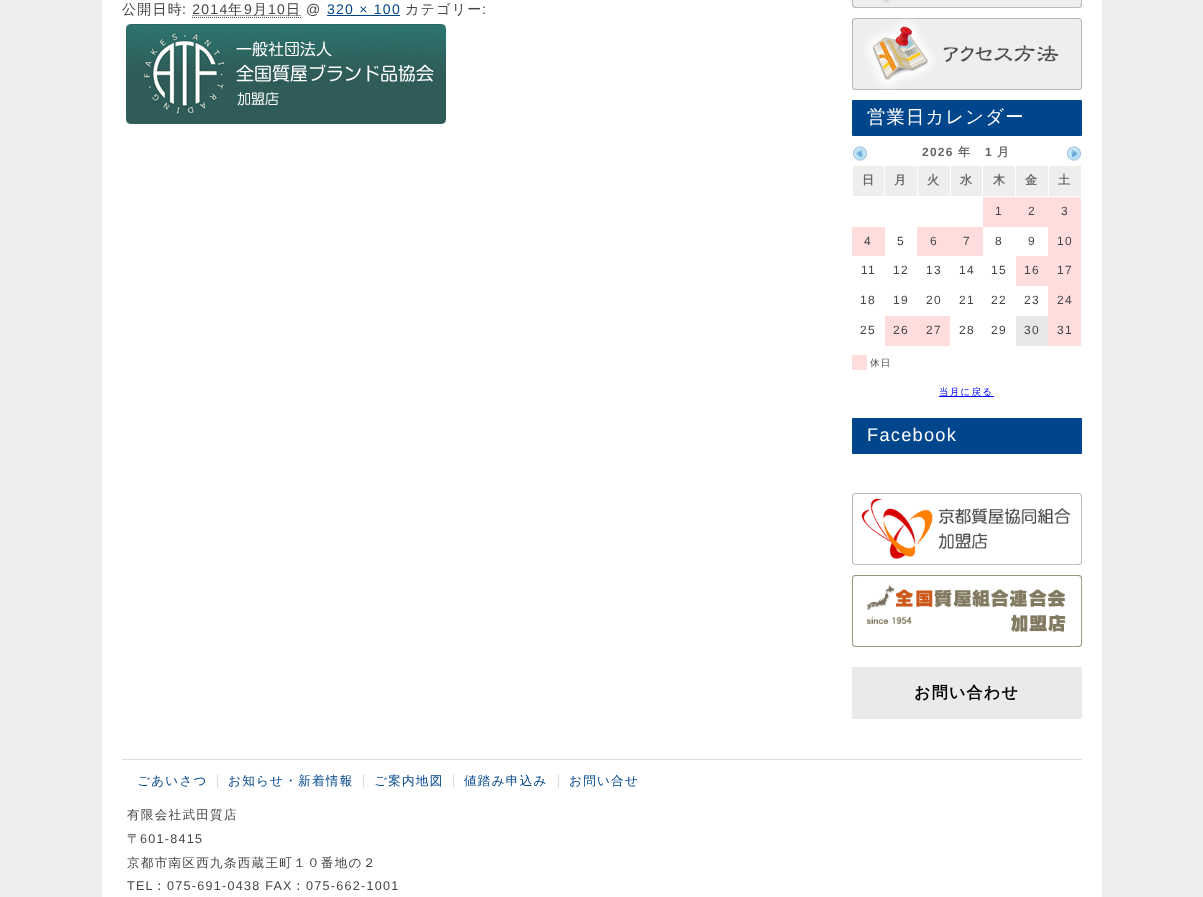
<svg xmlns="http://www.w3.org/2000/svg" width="1203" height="897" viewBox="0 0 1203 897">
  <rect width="100%" height="100%" fill="#eeeeee"/>
  <rect x="102" y="0" width="1000" height="897" fill="#ffffff"/>
  <text x="122" y="14" font-family="WenQuanYi Zen Hei" font-size="14" font-weight="500" letter-spacing="1.25" fill="#454545">公開日時</text>
  <text x="182" y="14" font-family="Liberation Sans" font-size="14" letter-spacing="1.25" fill="#454545">: 2014</text>
  <path d="M192.5 15.5H301" fill="none" stroke="#454545" stroke-dasharray="1 1"/>
  <text x="228" y="14" font-family="WenQuanYi Zen Hei" font-size="14" font-weight="500" letter-spacing="1.25" fill="#454545">年</text>
  <text x="244" y="14" font-family="Liberation Sans" font-size="14" letter-spacing="1.25" fill="#454545">9</text>
  <path d="M192 17.5H301" fill="none" stroke="#454545" stroke-dasharray="1 1"/>
  <text x="253" y="14" font-family="WenQuanYi Zen Hei" font-size="14" font-weight="500" letter-spacing="1.25" fill="#454545">月</text>
  <text x="268" y="14" font-family="Liberation Sans" font-size="14" letter-spacing="1.25" fill="#454545">10</text>
  <text x="286" y="14" font-family="WenQuanYi Zen Hei" font-size="14" font-weight="500" letter-spacing="1.25" fill="#454545">日</text>
  <text x="306" y="14" font-family="Liberation Sans" font-size="14" letter-spacing="1.25" fill="#454545">@</text>
  <text x="327" y="14" font-family="Liberation Sans" font-size="14" letter-spacing="1.25" fill="#00468c">320 × 100</text>
  <rect x="327" y="15" width="73" height="1" fill="#00468c"/>
  <text x="405" y="14" font-family="WenQuanYi Zen Hei" font-size="14" font-weight="500" letter-spacing="1.25" fill="#454545">カテゴリー</text>
  <text x="482" y="14" font-family="Liberation Sans" font-size="14" letter-spacing="1.25" fill="#454545">:</text>
  <image x="126" y="24" width="320" height="100" href="img1.png"/>
  <image x="852" y="0" width="230" height="8" href="img2.png"/>
  <image x="852" y="18" width="230" height="72" href="img3.png"/>
  <rect x="852" y="100" width="230" height="36" rx="1" fill="#00468c"/>
  <text x="867" y="123" font-family="WenQuanYi Zen Hei" font-size="18.25" font-weight="500" letter-spacing="1.25" fill="#ffffff">営業日カレンダー</text>
  <image x="853" y="146" width="14" height="15" href="img4.png"/>
  <text x="922" y="156" font-family="Liberation Sans" font-size="12" font-weight="bold" letter-spacing="1.25" fill="#666666">2026</text>
  <text x="958" y="156" font-family="WenQuanYi Zen Hei" font-size="12" font-weight="bold" letter-spacing="1.25" fill="#666666">年</text>
  <text x="985" y="156" font-family="Liberation Sans" font-size="12" font-weight="bold" letter-spacing="1.25" fill="#666666">1</text>
  <text x="997" y="156" font-family="WenQuanYi Zen Hei" font-size="12" font-weight="bold" letter-spacing="1.25" fill="#666666">月</text>
  <image x="1067" y="146" width="14" height="15" href="img5.png"/>
  <rect x="853" y="166" width="31" height="30" fill="#eeeeee"/>
  <text x="862" y="184" font-family="WenQuanYi Zen Hei" font-size="12" font-weight="bold" letter-spacing="1.25" fill="#666666">日</text>
  <rect x="885" y="166" width="32" height="30" fill="#eeeeee"/>
  <text x="894" y="184" font-family="WenQuanYi Zen Hei" font-size="12" font-weight="bold" letter-spacing="1.25" fill="#666666">月</text>
  <rect x="918" y="166" width="32" height="30" fill="#eeeeee"/>
  <text x="927" y="184" font-family="WenQuanYi Zen Hei" font-size="12" font-weight="bold" letter-spacing="1.25" fill="#666666">火</text>
  <rect x="951" y="166" width="31" height="30" fill="#eeeeee"/>
  <text x="960" y="184" font-family="WenQuanYi Zen Hei" font-size="12" font-weight="bold" letter-spacing="1.25" fill="#666666">水</text>
  <rect x="983" y="166" width="32" height="30" fill="#eeeeee"/>
  <text x="993" y="184" font-family="WenQuanYi Zen Hei" font-size="12" font-weight="bold" letter-spacing="1.25" fill="#666666">木</text>
  <rect x="1016" y="166" width="32" height="30" fill="#eeeeee"/>
  <text x="1025" y="184" font-family="WenQuanYi Zen Hei" font-size="12" font-weight="bold" letter-spacing="1.25" fill="#666666">金</text>
  <rect x="1049" y="166" width="32" height="30" fill="#eeeeee"/>
  <text x="1058" y="184" font-family="WenQuanYi Zen Hei" font-size="12" font-weight="bold" letter-spacing="1.25" fill="#666666">土</text>
  <rect x="983" y="197" width="98" height="30" fill="#ffdddd"/>
  <text x="995" y="215" font-family="Liberation Sans" font-size="12" letter-spacing="1.25" fill="#454545">1</text>
  <text x="1028" y="215" font-family="Liberation Sans" font-size="12" letter-spacing="1.25" fill="#454545">2</text>
  <text x="1061" y="215" font-family="Liberation Sans" font-size="12" letter-spacing="1.25" fill="#454545">3</text>
  <rect x="852" y="227" width="33" height="29" fill="#ffdddd"/>
  <text x="864" y="245" font-family="Liberation Sans" font-size="12" letter-spacing="1.25" fill="#454545">4</text>
  <text x="897" y="245" font-family="Liberation Sans" font-size="12" letter-spacing="1.25" fill="#454545">5</text>
  <rect x="917" y="227" width="66" height="29" fill="#ffdddd"/>
  <text x="930" y="245" font-family="Liberation Sans" font-size="12" letter-spacing="1.25" fill="#454545">6</text>
  <text x="963" y="245" font-family="Liberation Sans" font-size="12" letter-spacing="1.25" fill="#454545">7</text>
  <text x="995" y="245" font-family="Liberation Sans" font-size="12" letter-spacing="1.25" fill="#454545">8</text>
  <text x="1028" y="245" font-family="Liberation Sans" font-size="12" letter-spacing="1.25" fill="#454545">9</text>
  <rect x="1048" y="227" width="33" height="29" fill="#ffdddd"/>
  <text x="1057" y="245" font-family="Liberation Sans" font-size="12" letter-spacing="1.25" fill="#454545">10</text>
  <text x="861" y="274" font-family="Liberation Sans" font-size="12" letter-spacing="1.25" fill="#454545">11</text>
  <text x="893" y="274" font-family="Liberation Sans" font-size="12" letter-spacing="1.25" fill="#454545">12</text>
  <text x="926" y="274" font-family="Liberation Sans" font-size="12" letter-spacing="1.25" fill="#454545">13</text>
  <text x="959" y="274" font-family="Liberation Sans" font-size="12" letter-spacing="1.25" fill="#454545">14</text>
  <text x="991" y="274" font-family="Liberation Sans" font-size="12" letter-spacing="1.25" fill="#454545">15</text>
  <rect x="1016" y="256" width="65" height="30" fill="#ffdddd"/>
  <text x="1024" y="274" font-family="Liberation Sans" font-size="12" letter-spacing="1.25" fill="#454545">16</text>
  <text x="1057" y="274" font-family="Liberation Sans" font-size="12" letter-spacing="1.25" fill="#454545">17</text>
  <text x="860" y="304" font-family="Liberation Sans" font-size="12" letter-spacing="1.25" fill="#454545">18</text>
  <text x="893" y="304" font-family="Liberation Sans" font-size="12" letter-spacing="1.25" fill="#454545">19</text>
  <text x="926" y="304" font-family="Liberation Sans" font-size="12" letter-spacing="1.25" fill="#454545">20</text>
  <text x="959" y="304" font-family="Liberation Sans" font-size="12" letter-spacing="1.25" fill="#454545">21</text>
  <text x="991" y="304" font-family="Liberation Sans" font-size="12" letter-spacing="1.25" fill="#454545">22</text>
  <text x="1024" y="304" font-family="Liberation Sans" font-size="12" letter-spacing="1.25" fill="#454545">23</text>
  <rect x="1048" y="286" width="33" height="60" fill="#ffdddd"/>
  <text x="1057" y="304" font-family="Liberation Sans" font-size="12" letter-spacing="1.25" fill="#454545">24</text>
  <text x="860" y="334" font-family="Liberation Sans" font-size="12" letter-spacing="1.25" fill="#454545">25</text>
  <rect x="885" y="316" width="65" height="30" fill="#ffdddd"/>
  <text x="893" y="334" font-family="Liberation Sans" font-size="12" letter-spacing="1.25" fill="#454545">26</text>
  <text x="926" y="334" font-family="Liberation Sans" font-size="12" letter-spacing="1.25" fill="#454545">27</text>
  <text x="959" y="334" font-family="Liberation Sans" font-size="12" letter-spacing="1.25" fill="#454545">28</text>
  <text x="991" y="334" font-family="Liberation Sans" font-size="12" letter-spacing="1.25" fill="#454545">29</text>
  <rect x="1016" y="316" width="32" height="30" fill="#e7e7e7"/>
  <text x="1024" y="334" font-family="Liberation Sans" font-size="12" letter-spacing="1.25" fill="#454545">30</text>
  <text x="1057" y="334" font-family="Liberation Sans" font-size="12" letter-spacing="1.25" fill="#454545">31</text>
  <rect x="852" y="355" width="15" height="15" fill="#ffdddd"/>
  <text x="870" y="366" font-family="WenQuanYi Zen Hei" font-size="9.5" font-weight="500" letter-spacing="1.25" fill="#454545">休日</text>
  <rect x="939" y="396" width="55" height="1" fill="#0000ff"/>
  <text x="939" y="395" font-family="WenQuanYi Zen Hei" font-size="9.5" font-weight="500" letter-spacing="1.25" fill="#0000ff">当月に戻る</text>
  <rect x="852" y="418" width="230" height="36" rx="1" fill="#00468c"/>
  <text x="867" y="441" font-family="Liberation Sans" font-size="18.25" letter-spacing="1.25" fill="#ffffff">Facebook</text>
  <image x="852" y="493" width="230" height="72" href="img6.png"/>
  <image x="852" y="575" width="230" height="72" href="img7.png"/>
  <rect x="852" y="667" width="230" height="52" rx="1" fill="#eaeaea"/>
  <text x="914" y="698" font-family="WenQuanYi Zen Hei" font-size="16" font-weight="bold" letter-spacing="1.25" fill="#000000">お問い合わせ</text>
  <rect x="122" y="759" width="960" height="1" fill="#dddddd"/>
  <text x="137" y="785" font-family="WenQuanYi Zen Hei" font-size="12.6" font-weight="500" letter-spacing="1.25" fill="#00468c">ごあいさつ</text>
  <rect x="217" y="774" width="1" height="14" fill="#dddddd"/>
  <text x="228" y="785" font-family="WenQuanYi Zen Hei" font-size="12.6" font-weight="500" letter-spacing="1.25" fill="#00468c">お知らせ・新着情報</text>
  <rect x="363" y="774" width="1" height="14" fill="#dddddd"/>
  <text x="374" y="785" font-family="WenQuanYi Zen Hei" font-size="12.6" font-weight="500" letter-spacing="1.25" fill="#00468c">ご案内地図</text>
  <rect x="453" y="774" width="1" height="14" fill="#dddddd"/>
  <text x="464" y="785" font-family="WenQuanYi Zen Hei" font-size="12.6" font-weight="500" letter-spacing="1.25" fill="#00468c">値踏み申込み</text>
  <rect x="558" y="774" width="1" height="14" fill="#dddddd"/>
  <text x="569" y="785" font-family="WenQuanYi Zen Hei" font-size="12.6" font-weight="500" letter-spacing="1.25" fill="#00468c">お問い合せ</text>
  <text x="127" y="819" font-family="WenQuanYi Zen Hei" font-size="12.6" font-weight="500" letter-spacing="1.25" fill="#454545">有限会社武田質店</text>
  <text x="127" y="843" font-family="WenQuanYi Zen Hei" font-size="12.6" font-weight="500" letter-spacing="1.25" fill="#454545">〒</text>
  <text x="140" y="843" font-family="Liberation Sans" font-size="12.6" letter-spacing="1.25" fill="#454545">601-8415</text>
  <text x="127" y="867" font-family="WenQuanYi Zen Hei" font-size="12.6" font-weight="500" letter-spacing="1.25" fill="#454545">京都市南区西九条西蔵王町１０番地の２</text>
  <text x="127" y="890" font-family="Liberation Sans" font-size="12.6" letter-spacing="1.25" fill="#454545">TEL</text>
  <text x="153" y="890" font-family="WenQuanYi Zen Hei" font-size="12.6" font-weight="500" letter-spacing="1.25" fill="#454545">：</text>
  <text x="167" y="890" font-family="Liberation Sans" font-size="12.6" letter-spacing="1.25" fill="#454545">075-691-0438 FAX</text>
  <text x="292" y="890" font-family="WenQuanYi Zen Hei" font-size="12.6" font-weight="500" letter-spacing="1.25" fill="#454545">：</text>
  <text x="306" y="890" font-family="Liberation Sans" font-size="12.6" letter-spacing="1.25" fill="#454545">075-662-1001</text>
</svg>
